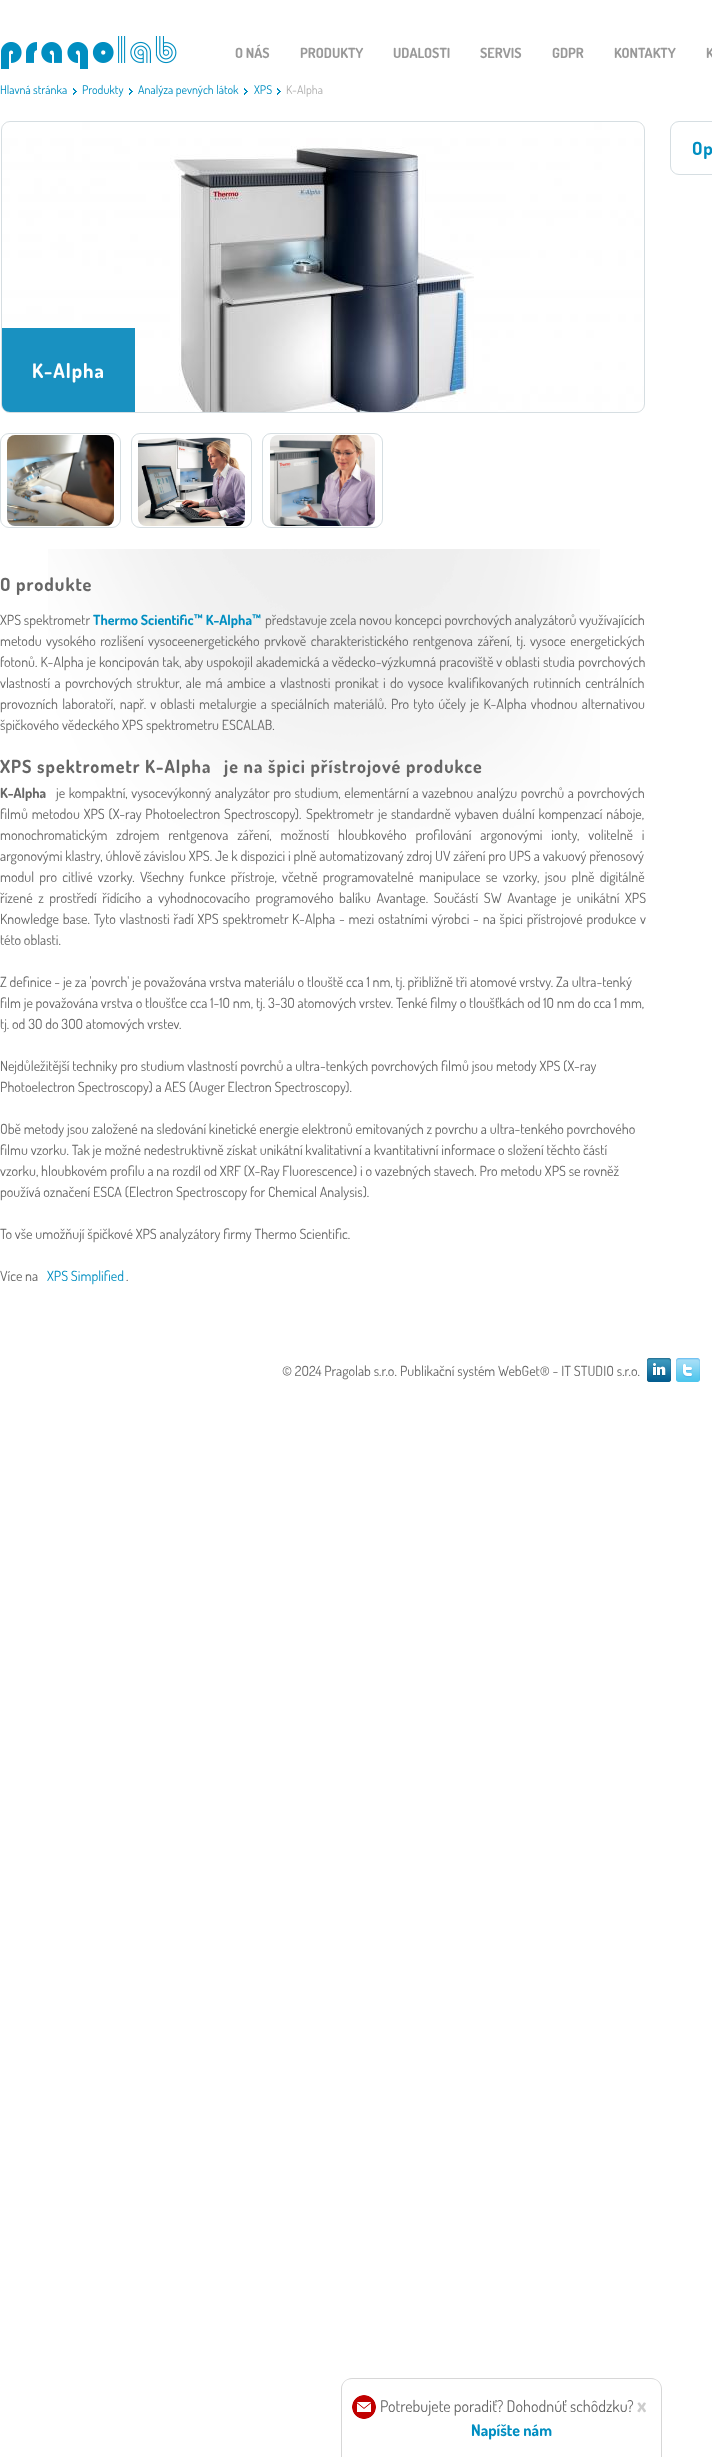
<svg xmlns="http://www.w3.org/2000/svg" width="712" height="2457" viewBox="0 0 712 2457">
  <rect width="100%" height="100%" fill="#ffffff"/>
  <image x="1" y="36" width="176" height="33" href="img1.png"/>
  <text x="235" y="58" font-family="Dosis" font-size="14" font-weight="bold" fill="#999999">O NÁS</text>
  <text x="300" y="58" font-family="Dosis" font-size="14" font-weight="bold" fill="#999999">PRODUKTY</text>
  <text x="393" y="58" font-family="Dosis" font-size="14" font-weight="bold" fill="#999999">UDALOSTI</text>
  <text x="480" y="58" font-family="Dosis" font-size="14" font-weight="bold" fill="#999999">SERVIS</text>
  <text x="552" y="58" font-family="Dosis" font-size="14" font-weight="bold" fill="#999999">GDPR</text>
  <text x="614" y="58" font-family="Dosis" font-size="14" font-weight="bold" fill="#999999">KONTAKTY</text>
  <text x="706" y="58" font-family="Dosis" font-size="14" font-weight="bold" fill="#999999">K</text>
  <text x="0" y="94" font-family="Dosis" font-size="12" fill="#008ec1">Hlavná stránka</text>
  <image x="73" y="88" width="4" height="7" href="img2.png"/>
  <text x="82" y="94" font-family="Dosis" font-size="12" fill="#008ec1">Produkty</text>
  <image x="129" y="88" width="4" height="7" href="img2.png"/>
  <text x="138" y="94" font-family="Dosis" font-size="12" fill="#008ec1">Analýza pevných látok</text>
  <image x="244" y="88" width="4" height="7" href="img2.png"/>
  <text x="254" y="94" font-family="Dosis" font-size="12" fill="#008ec1">XPS</text>
  <image x="277" y="88" width="4" height="7" href="img2.png"/>
  <text x="286" y="94" font-family="Dosis" font-size="12" fill="#afafaf">K-Alpha</text>
  <rect x="670.5" y="121.5" width="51" height="53" rx="8.5" fill="none" stroke="#d6dee2"/>
  <text x="692" y="155" font-family="Dosis" font-size="18.25" font-weight="bold" letter-spacing="1" fill="#008ec1">Op</text>
  <rect x="1.5" y="121.5" width="643" height="291" rx="8.5" fill="none" stroke="#d6dee2"/>
  <rect x="2" y="122" width="642" height="290" rx="8" fill="#cccccc"/>
  <image x="2" y="122" width="642" height="290" href="img3.png"/>
  <path d="M2 328H135V412H10C5.5 412 2 408.5 2 404Z" fill="#0085ba" fill-opacity="0.9"/>
  <text x="32" y="378" font-family="Dosis" font-size="20" font-weight="bold" letter-spacing="1" fill="#ffffff">K-Alpha</text>
  <rect x="0.5" y="433.5" width="120" height="94" rx="8.5" fill="none" stroke="#d6dee2"/>
  <image x="7" y="435" width="107" height="91" href="img4.png"/>
  <rect x="131.5" y="433.5" width="120" height="94" rx="8.5" fill="none" stroke="#d6dee2"/>
  <image x="138" y="437" width="107" height="89" href="img5.png"/>
  <rect x="262.5" y="433.5" width="120" height="94" rx="8.5" fill="none" stroke="#d6dee2"/>
  <image x="270" y="435" width="105" height="91" href="img6.png"/>
  <image x="48" y="549" width="552" height="283" href="img7.png"/>
  <text x="0" y="591" font-family="Dosis" font-size="18.25" font-weight="bold" letter-spacing="1" fill="#666666">O produkte</text>
  <text x="0" y="625" font-family="Dosis" font-size="14" fill="#666666">XPS spektrometr</text>
  <text x="93" y="625" font-family="Dosis" font-size="14" font-weight="bold" fill="#008ec1">Thermo Scientific™ K-Alpha™</text>
  <text x="265" y="625" font-family="Dosis" font-size="14" fill="#666666">představuje zcela novou koncepci povrchových analyzátorů využívajících</text>
  <text x="0" y="646" word-spacing="1.6" font-family="Dosis" font-size="14" fill="#666666">metodu vysokého rozlišení vysoceenergetického prvkově charakteristického rentgenova záření, tj. vysoce energetických</text>
  <text x="0" y="667" word-spacing="0.25" font-family="Dosis" font-size="14" fill="#666666">fotonů. K-Alpha je koncipován tak, aby uspokojil akademická a vědecko-výzkumná pracoviště v oblasti studia povrchových</text>
  <text x="0" y="688" word-spacing="1.5" font-family="Dosis" font-size="14" fill="#666666">vlastností a povrchových struktur, ale má ambice a vlastnosti pronikat i do vysoce kvalifikovaných rutinních centrálních</text>
  <text x="0" y="709" word-spacing="1.4" font-family="Dosis" font-size="14" fill="#666666">provozních laboratoří, např. v oblasti metalurgie a speciálních materiálů. Pro tyto účely je K-Alpha vhodnou alternativou</text>
  <text x="0" y="730" font-family="Dosis" font-size="14" fill="#666666">špičkového vědeckého XPS spektrometru ESCALAB.</text>
  <text x="0" y="773" font-family="Dosis" font-size="18" font-weight="bold" letter-spacing="1" fill="#666666">XPS spektrometr K-Alpha</text>
  <text x="224" y="773" font-family="Dosis" font-size="18" font-weight="bold" letter-spacing="1" fill="#666666">je na špici přístrojové produkce</text>
  <text x="0" y="798" font-family="Dosis" font-size="14" font-weight="bold" fill="#666666">K-Alpha</text>
  <text x="56" y="798" word-spacing="0.75" font-family="Dosis" font-size="14" fill="#666666">je kompaktní, vysocevýkonný analyzátor pro studium, elementární a vazebnou analýzu povrchů a povrchových</text>
  <text x="0" y="819" word-spacing="1" font-family="Dosis" font-size="14" fill="#666666">filmů metodou XPS (X-ray Photoelectron Spectroscopy).</text>
  <text x="306" y="819" font-family="Dosis" font-size="14" fill="#666666">Spektrometr</text>
  <text x="378" y="819" word-spacing="1" font-family="Dosis" font-size="14" fill="#666666">je standardně vybaven duální kompenzací náboje,</text>
  <text x="0" y="840" word-spacing="6" font-family="Dosis" font-size="14" fill="#666666">monochromatickým zdrojem rentgenova záření, možností hloubkového profilování argonovými ionty, volitelně i</text>
  <text x="0" y="861" font-family="Dosis" font-size="14" fill="#666666">argonovými klastry, úhlově závislou XPS. Je k dispozici i plně automatizovaný zdroj UV záření pro UPS a vakuový přenosový</text>
  <text x="0" y="882" word-spacing="2.4" font-family="Dosis" font-size="14" fill="#666666">modul pro citlivé vzorky. Všechny funkce přístroje, včetně programovatelné manipulace se vzorky, jsou plně digitálně</text>
  <text x="0" y="903" word-spacing="2.75" font-family="Dosis" font-size="14" fill="#666666">řízené z prostředí řídícího a vyhodnocovacího programového balíku Avantage. Součástí SW Avantage je unikátní XPS</text>
  <text x="0" y="924" word-spacing="1" font-family="Dosis" font-size="14" fill="#666666">Knowledge base. Tyto vlastnosti řadí XPS spektrometr</text>
  <text x="292" y="924" word-spacing="1" font-family="Dosis" font-size="14" fill="#666666">K-Alpha - mezi ostatními výrobci - na špici přístrojové produkce v</text>
  <text x="0" y="945" font-family="Dosis" font-size="14" fill="#666666">této oblasti.</text>
  <text x="0" y="987" font-family="Dosis" font-size="14" fill="#666666">Z definice - je za 'povrch' je považována vrstva materiálu o tlouště cca 1 nm, tj. přibližně tři atomové vrstvy. Za ultra-tenký</text>
  <text x="0" y="1008" font-family="Dosis" font-size="14" fill="#666666">film je považována vrstva o tloušťce cca 1-10 nm, tj. 3-30 atomových vrstev. Tenké filmy o tloušťkách od 10 nm do cca 1 mm,</text>
  <text x="0" y="1029" font-family="Dosis" font-size="14" fill="#666666">tj. od 30 do 300 atomových vrstev.</text>
  <text x="0" y="1071" font-family="Dosis" font-size="14" fill="#666666">Nejdůležitější techniky pro studium vlastností povrchů a ultra-tenkých povrchových filmů jsou metody XPS (X-ray</text>
  <text x="0" y="1092" font-family="Dosis" font-size="14" fill="#666666">Photoelectron Spectroscopy) a AES (Auger Electron Spectroscopy).</text>
  <text x="0" y="1134" font-family="Dosis" font-size="14" fill="#666666">Obě metody jsou založené na sledování kinetické energie elektronů emitovaných z povrchu a ultra-tenkého povrchového</text>
  <text x="0" y="1155" font-family="Dosis" font-size="14" fill="#666666">filmu vzorku. Tak je možné nedestruktivně získat unikátní kvalitativní a kvantitativní informace o složení těchto částí</text>
  <text x="0" y="1176" font-family="Dosis" font-size="14" fill="#666666">vzorku, hloubkovém profilu a na rozdíl od XRF (X-Ray Fluorescence) i o vazebných stavech. Pro metodu XPS se rovněž</text>
  <text x="0" y="1197" font-family="Dosis" font-size="14" fill="#666666">používá označení ESCA (Electron Spectroscopy for Chemical Analysis).</text>
  <text x="0" y="1239" font-family="Dosis" font-size="14" fill="#666666">To vše umožňují špičkové XPS analyzátory firmy Thermo Scientific.</text>
  <text x="0" y="1281" font-family="Dosis" font-size="14" fill="#666666">Více na</text>
  <text x="47" y="1281" font-family="Dosis" font-size="14" fill="#008ec1">XPS Simplified</text>
  <text x="126" y="1281" font-family="Dosis" font-size="14" fill="#666666">.</text>
  <text x="282" y="1376" font-family="Dosis" font-size="14" fill="#666666">© 2024 Pragolab s.r.o.</text>
  <text x="400" y="1376" font-family="Dosis" font-size="14" fill="#666666">Publikační systém WebGet® - IT STUDIO s.r.o.</text>
  <image x="647" y="1358" width="24" height="24" href="img8.png"/>
  <image x="676" y="1358" width="24" height="24" href="img9.png"/>
  <image x="352" y="2395" width="24" height="24" href="img10.png"/>
  <path d="M352 2378H651C657 2378 662 2383 662 2389V2457H341V2389C341 2383 346 2378 352 2378ZM352 2379H651C657 2379 661 2383 661 2389V2457H342V2389C342 2383 346 2379 352 2379Z" fill="#d7d7d7" fill-rule="evenodd"/>
  <text x="380" y="2412" font-family="Dosis" font-size="16" fill="#666666">Potrebujete poradiť? Dohodnúť schôdzku?</text>
  <text x="637" y="2412" font-family="Dosis" font-size="20" font-weight="bold" fill="#cccccc">x</text>
  <text x="471" y="2436" font-family="Dosis" font-size="16" font-weight="bold" fill="#008ec1">Napíšte nám</text>
</svg>
